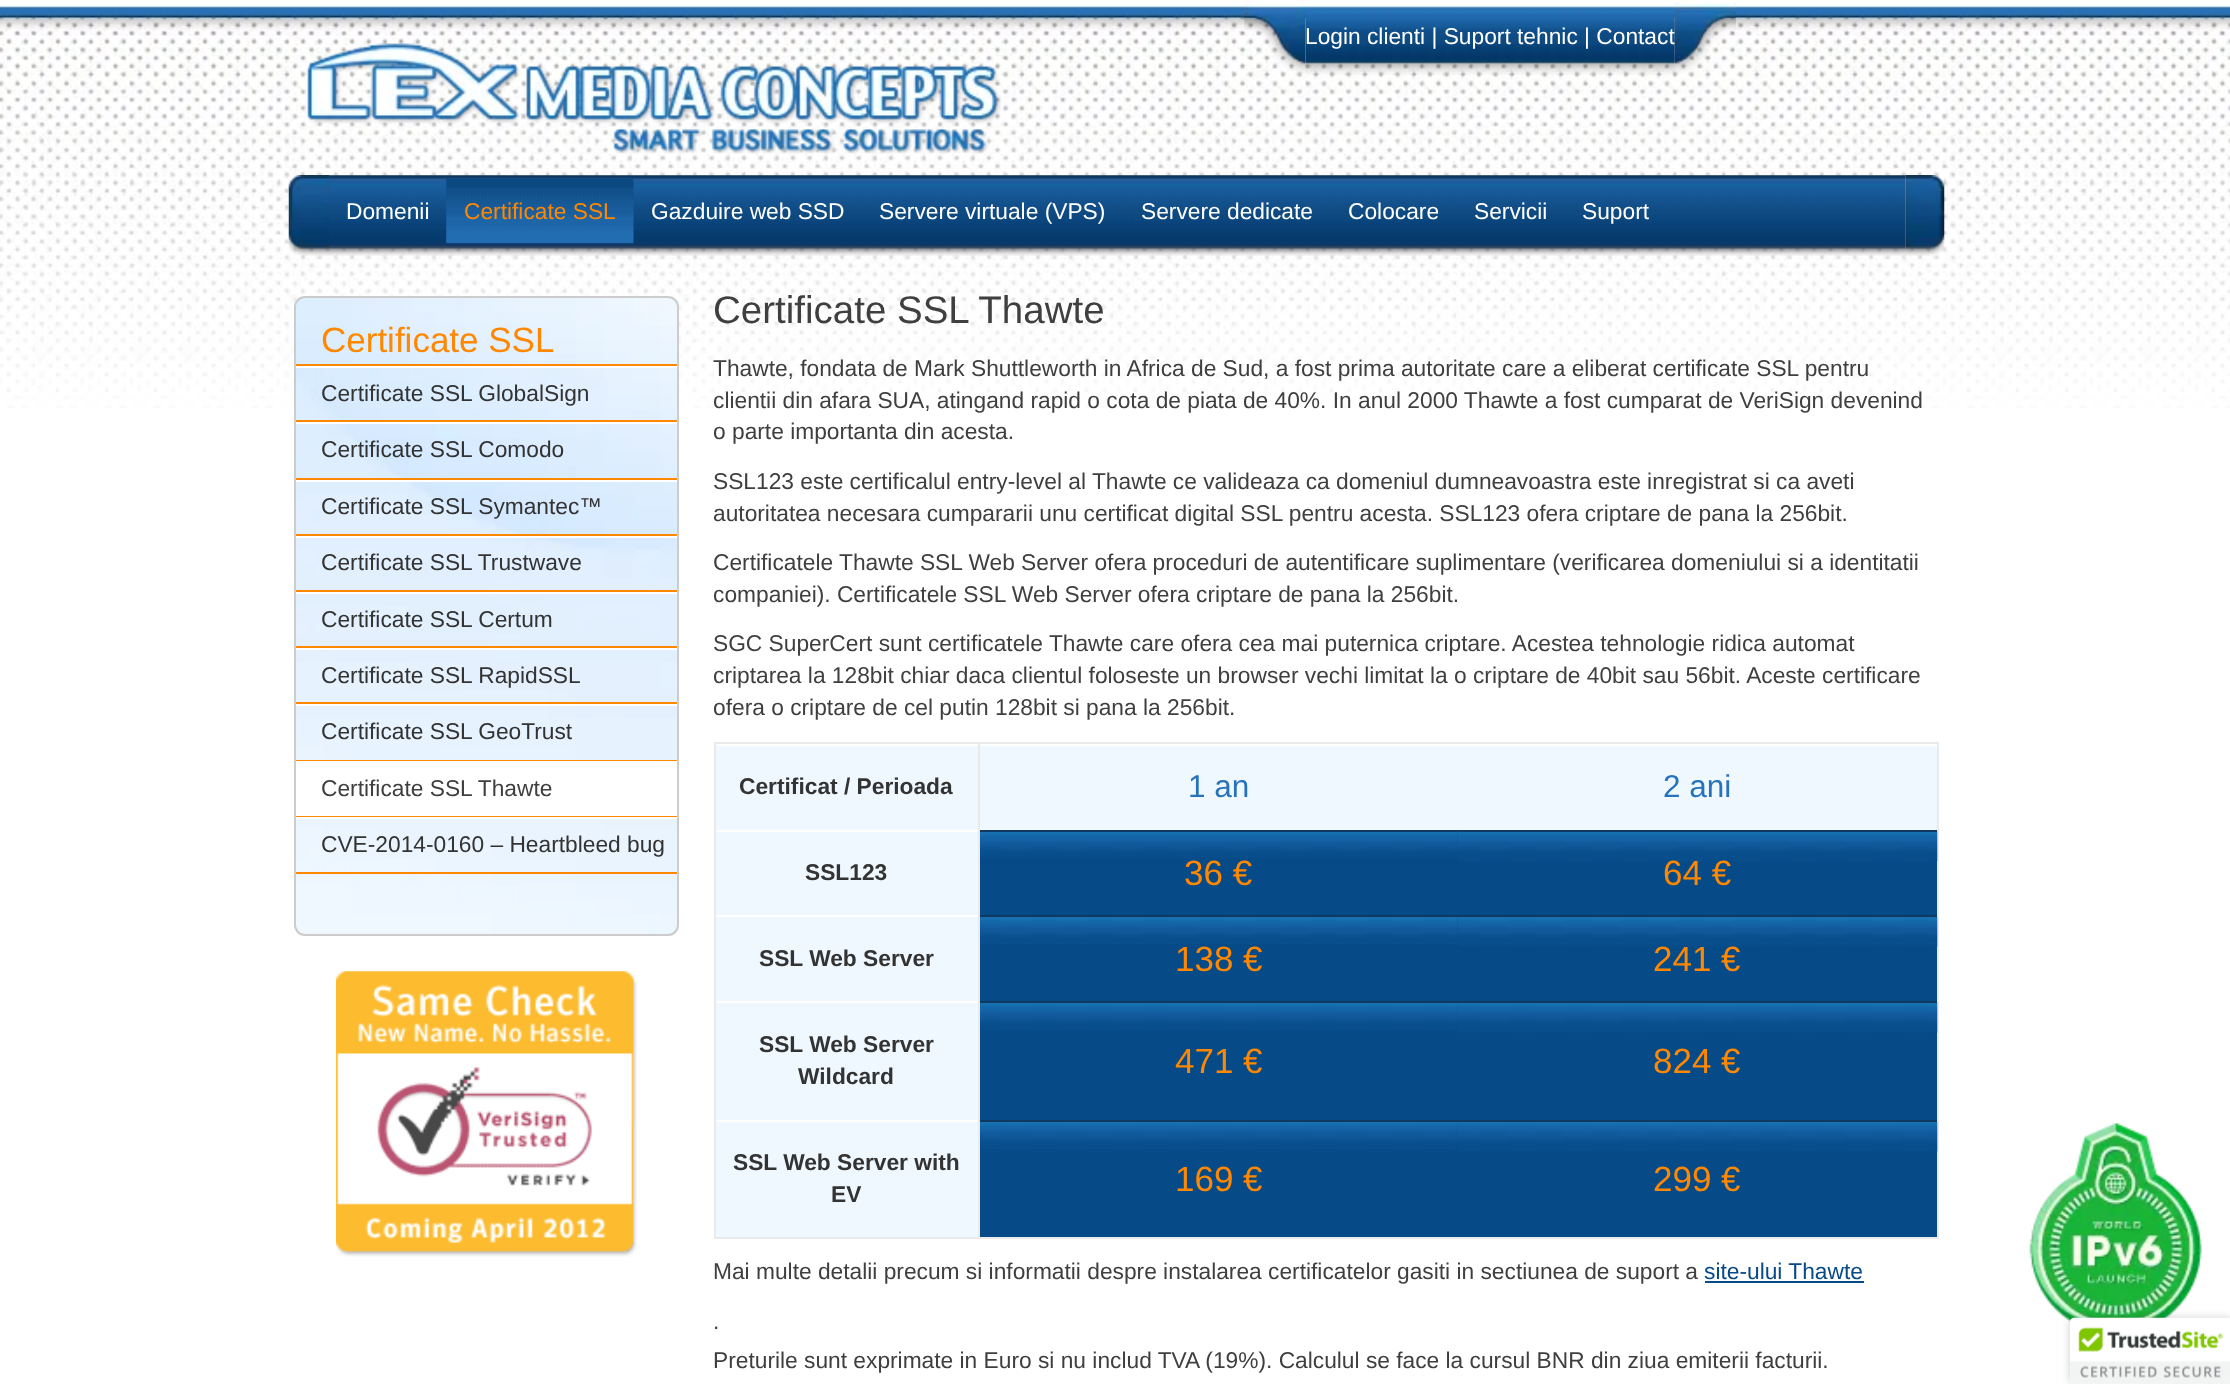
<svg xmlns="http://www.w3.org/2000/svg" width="2230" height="1384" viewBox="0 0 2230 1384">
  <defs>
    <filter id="blur1" x="-50%" y="-200%" width="200%" height="500%"><feGaussianBlur stdDeviation="4.5"/></filter>
  </defs>
  <rect width="100%" height="100%" fill="#ffffff"/>
  <image x="0" y="0" width="2230" height="408" href="img1.png"/>
  <image x="1244" y="0" width="62" height="73" href="img2.png"/>
  <image x="1305" y="7" width="370" height="68" href="img3.png"/>
  <text x="1305" y="44" font-family="Liberation Sans" font-size="22.75" fill="#ffffff">Login clienti | Suport tehnic | Contact</text>
  <image x="1674" y="0" width="62" height="74" href="img4.png"/>
  <image x="307" y="43" width="694" height="111" href="img5.png"/>
  <image x="288" y="175" width="41" height="81" href="img6.png"/>
  <image x="329" y="175" width="1577" height="81" href="img7.png"/>
  <text x="346" y="219" font-family="Liberation Sans" font-size="22.75" fill="#ffffff">Domenii</text>
  <image x="446" y="178" width="188" height="66" href="img8.png"/>
  <text x="464" y="219" font-family="Liberation Sans" font-size="22.75" fill="#ff8800">Certificate SSL</text>
  <text x="651" y="219" font-family="Liberation Sans" font-size="22.75" fill="#ffffff">Gazduire web SSD</text>
  <text x="879" y="219" font-family="Liberation Sans" font-size="22.75" fill="#ffffff">Servere virtuale (VPS)</text>
  <text x="1141" y="219" font-family="Liberation Sans" font-size="22.75" fill="#ffffff">Servere dedicate</text>
  <text x="1348" y="219" font-family="Liberation Sans" font-size="22.75" fill="#ffffff">Colocare</text>
  <text x="1474" y="219" font-family="Liberation Sans" font-size="22.75" fill="#ffffff">Servicii</text>
  <text x="1582" y="219" font-family="Liberation Sans" font-size="22.75" fill="#ffffff">Suport</text>
  <image x="1905" y="175" width="40" height="81" href="img9.png"/>
  <image x="295" y="297" width="384" height="639" href="img10.png"/>
  <rect x="295" y="297" width="383" height="638" rx="10" fill="none" stroke="#cccccc" stroke-width="2"/>
  <rect x="296" y="364" width="381" height="2" fill="#ff8800"/>
  <text x="321" y="352" font-family="Liberation Sans" font-size="35" fill="#ff8800">Certificate SSL</text>
  <rect x="296" y="366" width="381" height="2" fill="#ffffff"/>
  <rect x="296" y="420" width="381" height="2" fill="#ff8800"/>
  <text x="321" y="401" font-family="Liberation Sans" font-size="22.75" fill="#333333">Certificate SSL GlobalSign</text>
  <rect x="296" y="422" width="381" height="2" fill="#ffffff"/>
  <rect x="296" y="478" width="381" height="2" fill="#ff8800"/>
  <text x="321" y="457" font-family="Liberation Sans" font-size="22.75" fill="#333333">Certificate SSL Comodo</text>
  <rect x="296" y="480" width="381" height="2" fill="#ffffff"/>
  <rect x="296" y="534" width="381" height="2" fill="#ff8800"/>
  <text x="321" y="514" font-family="Liberation Sans" font-size="22.75" fill="#333333">Certificate SSL Symantec™</text>
  <rect x="296" y="536" width="381" height="2" fill="#ffffff"/>
  <rect x="296" y="590" width="381" height="2" fill="#ff8800"/>
  <text x="321" y="570" font-family="Liberation Sans" font-size="22.75" fill="#333333">Certificate SSL Trustwave</text>
  <rect x="296" y="592" width="381" height="2" fill="#ffffff"/>
  <rect x="296" y="646" width="381" height="2" fill="#ff8800"/>
  <text x="321" y="627" font-family="Liberation Sans" font-size="22.75" fill="#333333">Certificate SSL Certum</text>
  <rect x="296" y="648" width="381" height="2" fill="#ffffff"/>
  <rect x="296" y="702" width="381" height="2" fill="#ff8800"/>
  <text x="321" y="683" font-family="Liberation Sans" font-size="22.75" fill="#333333">Certificate SSL RapidSSL</text>
  <rect x="296" y="704" width="381" height="2" fill="#ffffff"/>
  <rect x="296" y="760" width="381" height="1" fill="#ff8800"/>
  <text x="321" y="739" font-family="Liberation Sans" font-size="22.75" fill="#333333">Certificate SSL GeoTrust</text>
  <rect x="296" y="761" width="381" height="55" fill="#ffffff"/>
  <rect x="296" y="816" width="381" height="1" fill="#ff8800"/>
  <text x="321" y="796" font-family="Liberation Sans" font-size="22.75" fill="#3f3f3f">Certificate SSL Thawte</text>
  <rect x="296" y="817" width="381" height="2" fill="#ffffff"/>
  <rect x="296" y="872" width="381" height="2" fill="#ff8800"/>
  <text x="321" y="852" font-family="Liberation Sans" font-size="22.75" fill="#333333">CVE-2014-0160 – Heartbleed bug</text>
  <image x="336" y="971" width="301" height="286" href="img11.png"/>
  <text x="713" y="323" font-family="Liberation Sans" font-size="38.5" fill="#3f3f3f">Certificate SSL Thawte</text>
  <text x="713" y="376" font-family="Liberation Sans" font-size="22.75" fill="#3f3f3f">Thawte, fondata de Mark Shuttleworth in Africa de Sud, a fost prima autoritate care a eliberat certificate SSL pentru</text>
  <text x="713" y="408" font-family="Liberation Sans" font-size="22.75" fill="#3f3f3f">clientii din afara SUA, atingand rapid o cota de piata de 40%. In anul 2000 Thawte a fost cumparat de VeriSign devenind</text>
  <text x="713" y="439" font-family="Liberation Sans" font-size="22.75" fill="#3f3f3f">o parte importanta din acesta.</text>
  <text x="713" y="489" font-family="Liberation Sans" font-size="22.75" fill="#3f3f3f">SSL123 este certificalul entry-level al Thawte ce valideaza ca domeniul dumneavoastra este inregistrat si ca aveti</text>
  <text x="713" y="521" font-family="Liberation Sans" font-size="22.75" fill="#3f3f3f">autoritatea necesara cumpararii unu certificat digital SSL pentru acesta. SSL123 ofera criptare de pana la 256bit.</text>
  <text x="713" y="570" font-family="Liberation Sans" font-size="22.75" fill="#3f3f3f">Certificatele Thawte SSL Web Server ofera proceduri de autentificare suplimentare (verificarea domeniului si a identitatii</text>
  <text x="713" y="602" font-family="Liberation Sans" font-size="22.75" fill="#3f3f3f">companiei). Certificatele SSL Web Server ofera criptare de pana la 256bit.</text>
  <text x="713" y="651" font-family="Liberation Sans" font-size="22.75" fill="#3f3f3f">SGC SuperCert sunt certificatele Thawte care ofera cea mai puternica criptare. Acestea tehnologie ridica automat</text>
  <text x="713" y="683" font-family="Liberation Sans" font-size="22.75" fill="#3f3f3f">criptarea la 128bit chiar daca clientul foloseste un browser vechi limitat la o criptare de 40bit sau 56bit. Aceste certificare</text>
  <text x="713" y="715" font-family="Liberation Sans" font-size="22.75" fill="#3f3f3f">ofera o criptare de cel putin 128bit si pana la 256bit.</text>
  <rect x="980" y="832" width="957" height="405" fill="#074a88"/>
  <rect x="715" y="743" width="1223" height="495" fill="none" stroke="#eaeaea" stroke-width="2"/>
  <rect x="716" y="746" width="262" height="84" fill="#eff7ff"/>
  <rect x="978" y="744" width="2" height="493" fill="#eaeaea"/>
  <text x="739" y="794" font-family="Liberation Sans" font-size="22.75" font-weight="bold" fill="#333333">Certificat / Perioada</text>
  <rect x="980" y="746" width="957" height="84" fill="#eff7ff"/>
  <text x="1188" y="797" font-family="Liberation Sans" font-size="31.5" fill="#2673ba">1 an</text>
  <text x="1663" y="797" font-family="Liberation Sans" font-size="31.5" fill="#2673ba">2 ani</text>
  <rect x="716" y="832" width="262" height="83" fill="#eff7ff"/>
  <text x="805" y="880" font-family="Liberation Sans" font-size="22.75" font-weight="bold" fill="#333333">SSL123</text>
  <image x="980" y="832" width="478" height="26" href="img12.png"/>
  <rect x="980" y="830" width="478" height="2" fill="#10395f"/>
  <text x="1184" y="885" font-family="Liberation Sans" font-size="35" fill="#ff8800">36 €</text>
  <image x="1457" y="831" width="481" height="30" href="img13.png"/>
  <rect x="1458" y="830" width="479" height="2" fill="#10395f"/>
  <text x="1663" y="885" font-family="Liberation Sans" font-size="35" fill="#ff8800">64 €</text>
  <rect x="716" y="917" width="262" height="84" fill="#eff7ff"/>
  <text x="759" y="966" font-family="Liberation Sans" font-size="22.75" font-weight="bold" fill="#333333">SSL Web Server</text>
  <image x="980" y="917" width="478" height="27" href="img14.png"/>
  <rect x="980" y="915" width="957" height="2" fill="#10395f"/>
  <text x="1175" y="971" font-family="Liberation Sans" font-size="35" fill="#ff8800">138 €</text>
  <image x="1458" y="917" width="480" height="30" href="img15.png"/>
  <text x="1653" y="971" font-family="Liberation Sans" font-size="35" fill="#ff8800">241 €</text>
  <rect x="716" y="1003" width="262" height="117" fill="#eff7ff"/>
  <text x="759" y="1052" font-family="Liberation Sans" font-size="22.75" font-weight="bold" fill="#333333">SSL Web Server</text>
  <text x="798" y="1084" font-family="Liberation Sans" font-size="22.75" font-weight="bold" fill="#333333">Wildcard</text>
  <image x="980" y="1003" width="478" height="27" href="img16.png"/>
  <rect x="980" y="1001" width="478" height="2" fill="#10395f"/>
  <text x="1175" y="1073" font-family="Liberation Sans" font-size="35" fill="#ff8800">471 €</text>
  <image x="1457" y="1002" width="481" height="31" href="img17.png"/>
  <rect x="1458" y="1001" width="479" height="2" fill="#10395f"/>
  <text x="1653" y="1073" font-family="Liberation Sans" font-size="35" fill="#ff8800">824 €</text>
  <rect x="716" y="1122" width="262" height="115" fill="#eff7ff"/>
  <text x="733" y="1170" font-family="Liberation Sans" font-size="22.75" font-weight="bold" fill="#333333">SSL Web Server with</text>
  <text x="831" y="1202" font-family="Liberation Sans" font-size="22.75" font-weight="bold" fill="#333333">EV</text>
  <image x="980" y="1122" width="478" height="27" href="img16.png"/>
  <rect x="980" y="1120" width="478" height="2" fill="#10395f"/>
  <text x="1175" y="1191" font-family="Liberation Sans" font-size="35" fill="#ff8800">169 €</text>
  <image x="1457" y="1121" width="481" height="31" href="img17.png"/>
  <rect x="1458" y="1120" width="479" height="2" fill="#10395f"/>
  <text x="1653" y="1191" font-family="Liberation Sans" font-size="35" fill="#ff8800">299 €</text>
  <text x="713" y="1279" font-family="Liberation Sans" font-size="22.75" fill="#3f3f3f">Mai multe detalii precum si informatii despre instalarea certificatelor gasiti in sectiunea de suport a</text>
  <text x="1704" y="1279" font-family="Liberation Sans" font-size="22.75" fill="#074a88">site-ului Thawte</text>
  <rect x="1705" y="1281" width="159" height="2" fill="#074a88"/>
  <text x="713" y="1329" font-family="Liberation Sans" font-size="22.75" fill="#3f3f3f">.</text>
  <text x="713" y="1368" font-family="Liberation Sans" font-size="22.75" fill="#3f3f3f">Preturile sunt exprimate in Euro si nu includ TVA (19%). Calculul se face la cursul BNR din ziua emiterii facturii.</text>
  <image x="2029" y="1123" width="173" height="199" href="img18.png"/>
  <rect x="2070" y="1318" width="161" height="66" rx="4" fill="#000000" fill-opacity="0.2" filter="url(#blur1)"/>
  <path d="M2074 1318H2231V1384H2070V1322C2070 1320 2072 1318 2074 1318Z" fill="#ffffff"/>
  <image x="2070" y="1317" width="160" height="67" href="img19.png"/>
</svg>
